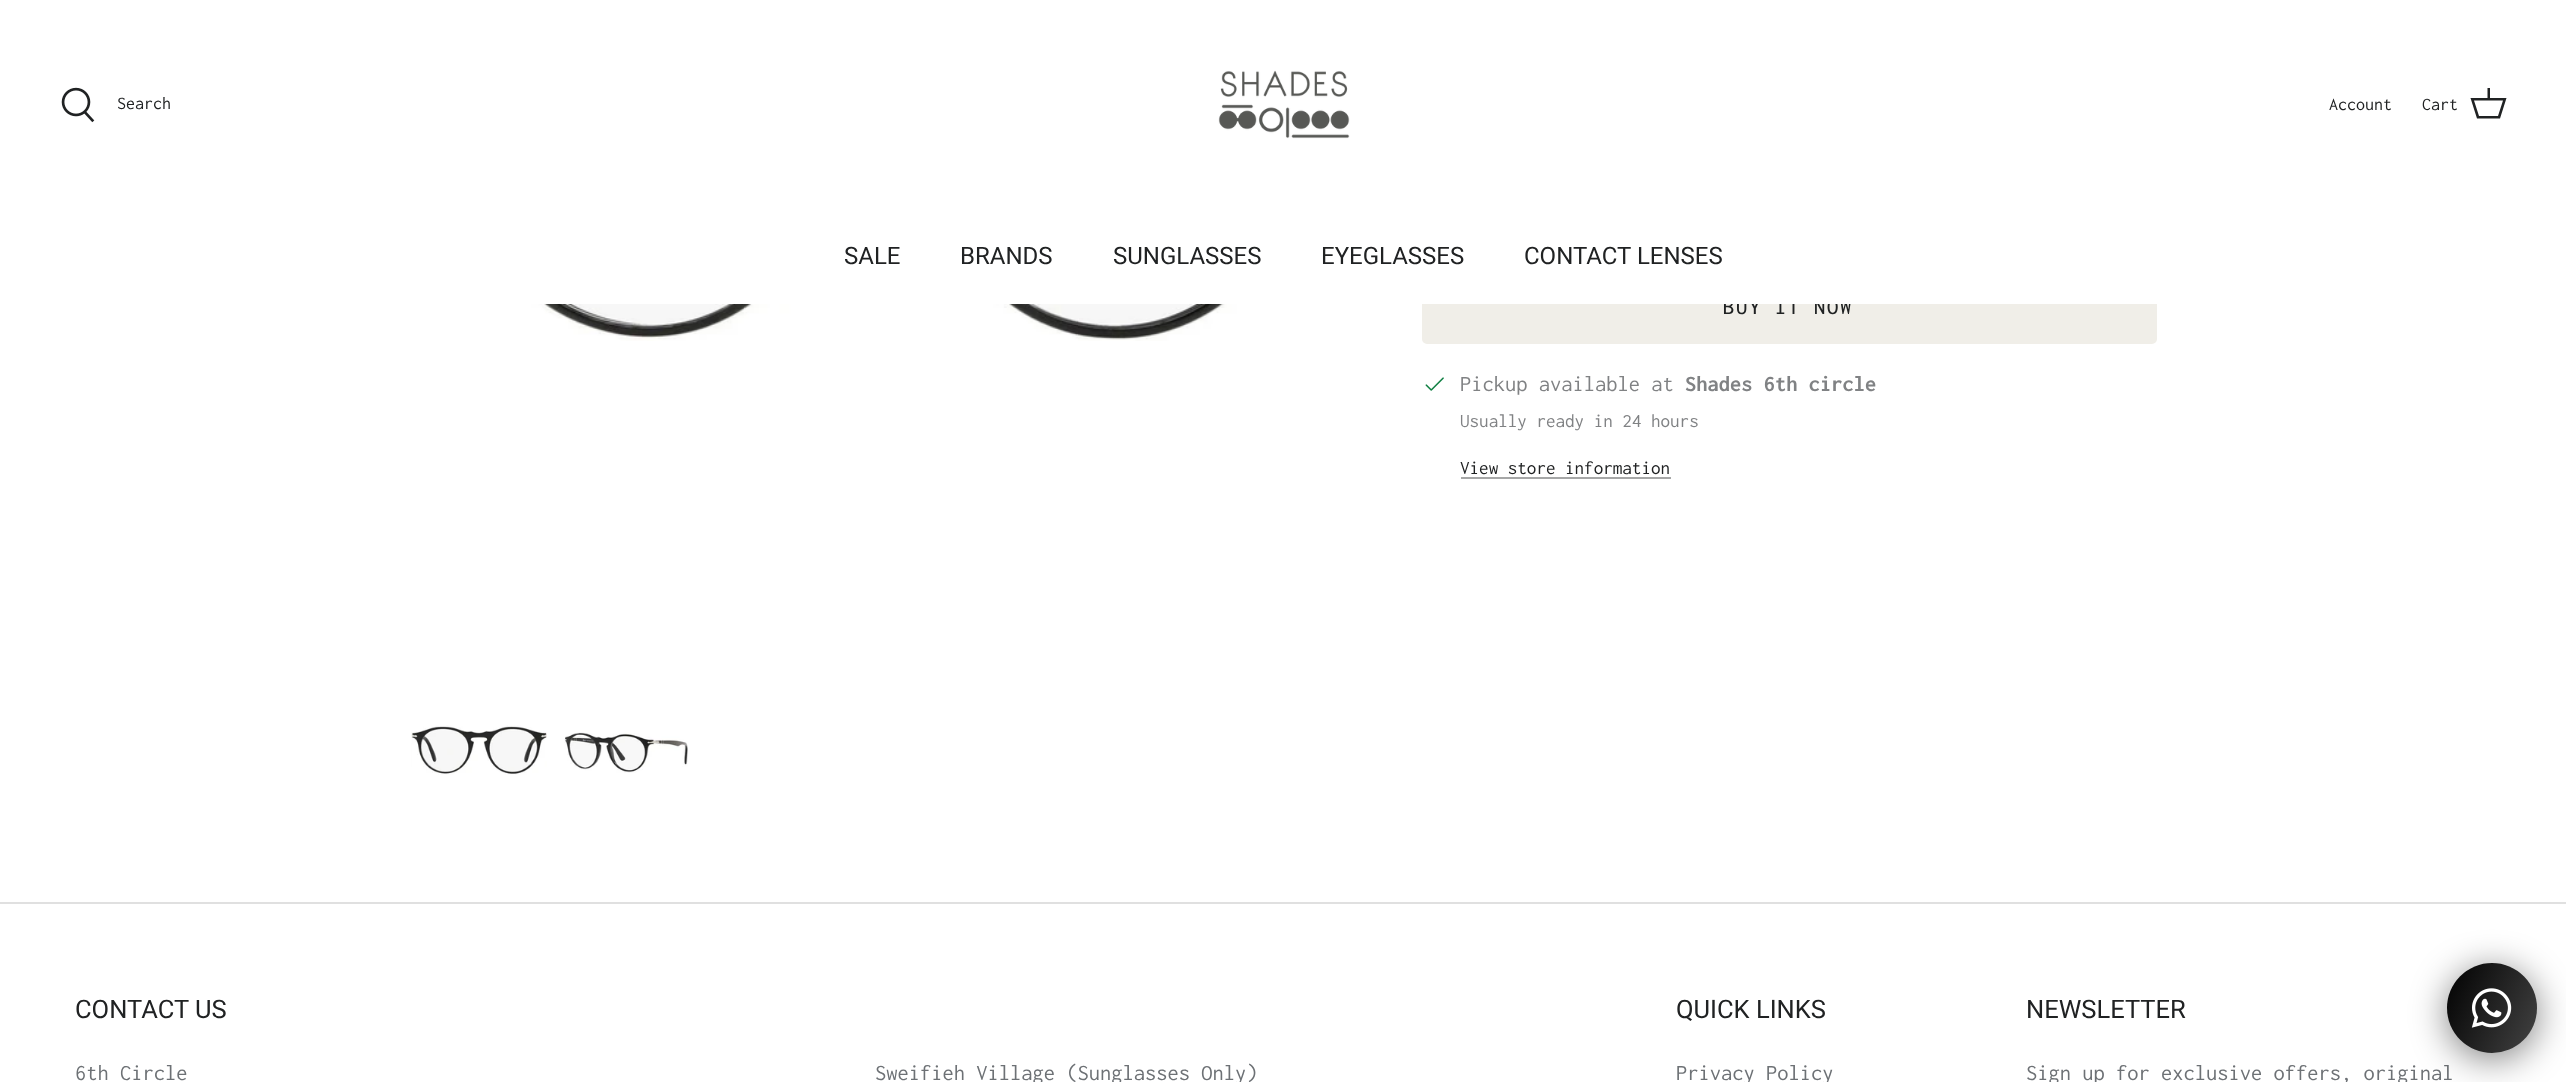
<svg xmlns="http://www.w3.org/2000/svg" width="2566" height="1082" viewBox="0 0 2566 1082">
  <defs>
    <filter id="blur1" x="-50%" y="-200%" width="200%" height="500%"><feGaussianBlur stdDeviation="18"/></filter>
    <linearGradient id="g1" gradientUnits="userSpaceOnUse" x1="2437" y1="983" x2="2546" y2="1033"><stop offset="0" stop-color="#000000"/><stop offset="1" stop-color="#434343"/></linearGradient>
  </defs>
  <rect width="100%" height="100%" fill="#ffffff"/>
  <image x="61" y="87" width="34" height="36" href="img1.png"/>
  <text x="117" y="109" font-family="Inconsolata" font-size="18" fill="#202223">Search</text>
  <image x="1218" y="70" width="132" height="69" href="img2.png"/>
  <text x="2329" y="110" font-family="Inconsolata" font-size="18" fill="#202223">Account</text>
  <text x="2422" y="110" font-family="Inconsolata" font-size="18" fill="#202223">Cart</text>
  <path d="M2487.5 98V88H2490V98H2506.5L2500 118.5H2477L2470.5 98ZM2474 100.5L2479 116H2498L2503 100.5Z" fill="#202223"/>
  <rect x="1423" y="273" width="733" height="70" rx="4" fill="#f0eee8" stroke="#f0eee8" stroke-width="2"/>
  <text x="1723" y="314" font-family="Inconsolata" font-size="22.5" font-weight="500" letter-spacing="1.75" fill="#202223">BUY IT NOW</text>
  <rect x="1422" y="272" width="735" height="32" fill="#ffffff"/>
  <text x="844" y="264" font-family="Roboto" font-size="24" fill="#202223">SALE</text>
  <text x="960" y="264" font-family="Roboto" font-size="24" fill="#202223">BRANDS</text>
  <text x="1113" y="264" font-family="Roboto" font-size="24" fill="#202223">SUNGLASSES</text>
  <text x="1321" y="264" font-family="Roboto" font-size="24" fill="#202223">EYEGLASSES</text>
  <text x="1524" y="264" font-family="Roboto" font-size="24" fill="#202223">CONTACT LENSES</text>
  <image x="416" y="304" width="939" height="37" href="img3.png"/>
  <image x="411" y="725" width="136" height="50" href="img4.png"/>
  <image x="564" y="732" width="124" height="41" href="img5.png"/>
  <image x="1425" y="377" width="19" height="14" href="img6.png"/>
  <text x="1460" y="391" font-family="Inconsolata" font-size="22.5" fill="#808284">Pickup available at</text>
  <text x="1685" y="391" font-family="Inconsolata" font-size="22.5" font-weight="bold" fill="#808284">Shades 6th circle</text>
  <text x="1460" y="427" font-family="Inconsolata" font-size="19.1" fill="#808284">Usually ready in 24 hours</text>
  <text x="1460" y="474" font-family="Inconsolata" font-size="19.1" fill="#202223">View store information</text>
  <rect x="1461" y="477" width="210" height="2" fill="#a6a7a7"/>
  <rect x="0" y="902" width="2566" height="2" fill="#e0e0e0"/>
  <text x="75" y="1018" font-family="Roboto" font-size="25.5" fill="#202223">CONTACT US</text>
  <text x="75" y="1080" font-family="Inconsolata" font-size="22.5" fill="#6d7175">6th Circle</text>
  <text x="875" y="1080" font-family="Inconsolata" font-size="22.5" fill="#6d7175">Sweifieh Village (Sunglasses Only)</text>
  <text x="1676" y="1018" font-family="Roboto" font-size="25.5" fill="#202223">QUICK LINKS</text>
  <text x="1676" y="1080" font-family="Inconsolata" font-size="22.5" fill="#6d7175">Privacy Policy</text>
  <text x="2026" y="1018" font-family="Roboto" font-size="25.5" fill="#202223">NEWSLETTER</text>
  <text x="2026" y="1080" font-family="Inconsolata" font-size="22.5" fill="#6d7175">Sign up for exclusive offers, original</text>
  <rect x="2447" y="969" width="90" height="90" rx="45" fill="#000000" fill-opacity="0.5" filter="url(#blur1)"/>
  <circle cx="2492" cy="1008" r="45" fill="url(#g1)"/>
  <image x="2471" y="988" width="41" height="40" href="img7.png"/>
</svg>
